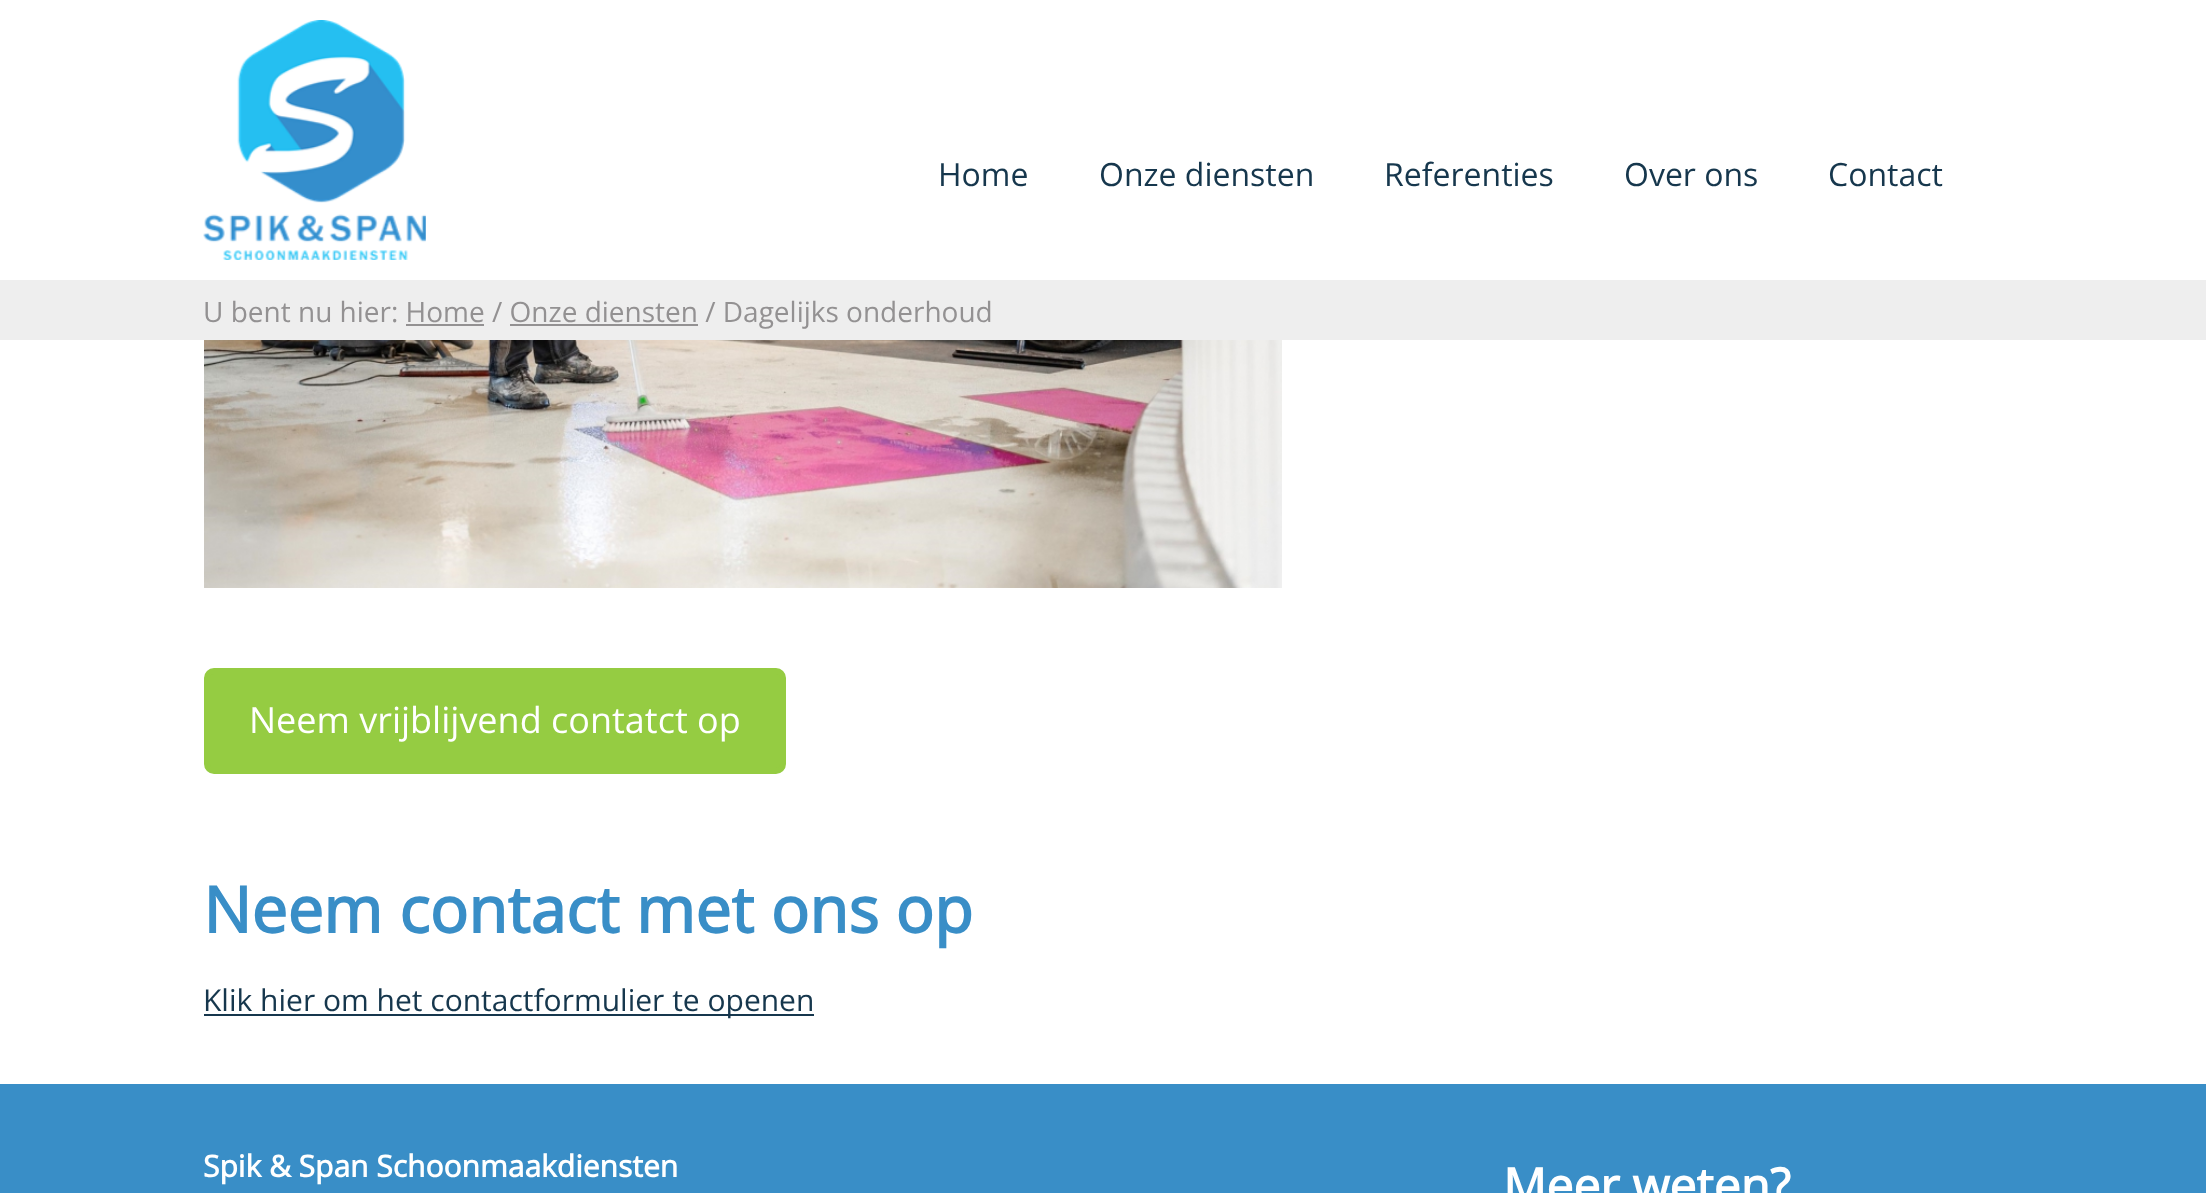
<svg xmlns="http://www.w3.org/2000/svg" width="2206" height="1193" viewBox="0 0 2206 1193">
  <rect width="100%" height="100%" fill="#ffffff"/>
  <image x="203" y="20" width="223" height="240" href="img1.png"/>
  <text x="938" y="186" font-family="Open Sans" font-size="32" fill="#16374d">Home</text>
  <text x="1099" y="186" font-family="Open Sans" font-size="32" fill="#16374d">Onze diensten</text>
  <text x="1384" y="186" font-family="Open Sans" font-size="32" fill="#16374d">Referenties</text>
  <text x="1624" y="186" font-family="Open Sans" font-size="32" fill="#16374d">Over ons</text>
  <text x="1828" y="186" font-family="Open Sans" font-size="32" fill="#16374d">Contact</text>
  <rect x="0" y="280" width="2206" height="60" fill="#eeeeee"/>
  <text x="203" y="322" font-family="Open Sans" font-size="28" fill="#939192">U bent nu hier: Home / Onze diensten / Dagelijks onderhoud</text>
  <rect x="406" y="324" width="78" height="2" fill="#939192"/>
  <rect x="510" y="324" width="188" height="2" fill="#939192"/>
  <image x="204" y="340" width="1078" height="248" href="img2.png"/>
  <rect x="207" y="671" width="576" height="100" rx="7" fill="#95cc42" stroke="#95cc42" stroke-width="6"/>
  <text x="249" y="733" font-family="Open Sans" font-size="36" fill="#ffffff">Neem vrijblijvend contatct op</text>
  <text x="203" y="933" font-family="Open Sans" font-size="64" font-weight="bold" fill="#398ec7">Neem contact met ons op</text>
  <rect x="204" y="1014" width="610" height="2" fill="#16374d"/>
  <text x="203" y="1011" font-family="Open Sans" font-size="30" fill="#16374d">Klik hier om het contactformulier te openen</text>
  <rect x="0" y="1084" width="2206" height="109" fill="#398ec7"/>
  <text x="203" y="1177" font-family="Open Sans" font-size="30" font-weight="bold" fill="#ffffff">Spik &amp; Span Schoonmaakdiensten</text>
  <text x="1503" y="1203" font-family="Open Sans" font-size="48" font-weight="bold" fill="#ffffff">Meer weten?</text>
</svg>
